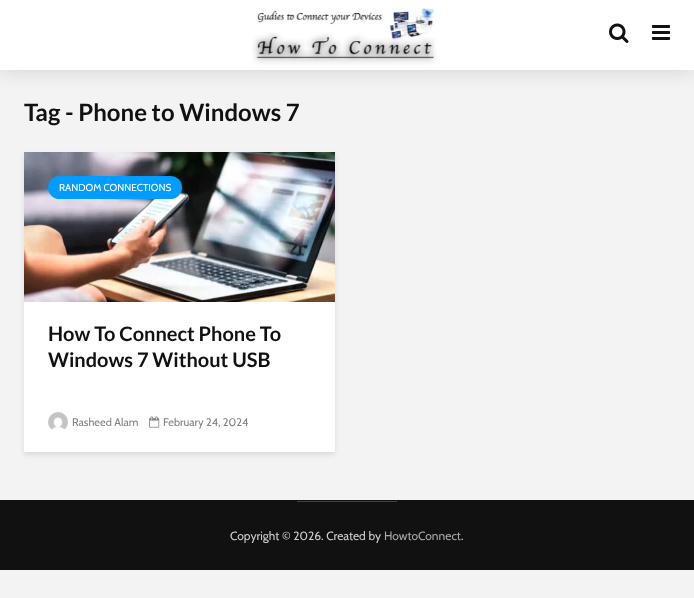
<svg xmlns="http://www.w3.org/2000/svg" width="694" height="598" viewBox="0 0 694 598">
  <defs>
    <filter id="blur1" x="-50%" y="-200%" width="200%" height="500%"><feGaussianBlur stdDeviation="10"/></filter>
    <filter id="blur2" x="-50%" y="-200%" width="200%" height="500%"><feGaussianBlur stdDeviation="2.5"/></filter>
  </defs>
  <rect width="100%" height="100%" fill="#f3f3f3"/>
  <rect x="0" y="0" width="694" height="70" fill="#000000" fill-opacity="0.15" filter="url(#blur1)"/>
  <rect x="0" y="0" width="694" height="70" fill="#ffffff"/>
  <image x="252" y="8" width="185" height="57" href="img1.png"/>
  <image x="609" y="23" width="20" height="20" href="img2.png"/>
  <image x="652" y="25" width="18" height="15" href="img3.png"/>
  <text x="24" y="121" font-family="Lato" font-size="24" font-weight="bold" fill="#111111">Tag - Phone to Windows 7</text>
  <rect x="24" y="155" width="311" height="300" fill="#000101" fill-opacity="0.1" filter="url(#blur2)"/>
  <rect x="24" y="302" width="311" height="150" fill="#ffffff"/>
  <image x="24" y="152" width="311" height="150" href="img4.png"/>
  <rect x="48" y="176" width="134" height="23" rx="11.5" fill="#009cff"/>
  <text x="59" y="191" font-family="Cabin" font-size="10" fill="#ffffff">RANDOM CONNECTIONS</text>
  <text x="48" y="341" font-family="Lato" font-size="20" font-weight="bold" fill="#111111">How To Connect Phone To</text>
  <text x="48" y="367" font-family="Lato" font-size="20" font-weight="bold" fill="#111111">Windows 7 Without USB</text>
  <image x="48" y="412" width="20" height="18" href="img5.png"/>
  <text x="72" y="426" font-family="Cabin" font-size="11" fill="#818181">Rasheed Alam</text>
  <image x="149" y="416" width="11" height="12" href="img6.png"/>
  <text x="163" y="426" font-family="Cabin" font-size="11" fill="#818181">February 24, 2024</text>
  <rect x="0" y="500" width="694" height="70" fill="#111111"/>
  <rect x="297" y="501" width="100" height="1" fill="#414141"/>
  <text x="230" y="540" font-family="Cabin" font-size="12" fill="#cfcfcf">Copyright © 2026. Created by</text>
  <text x="384" y="540" font-family="Cabin" font-size="12" fill="#a9a9a9">HowtoConnect</text>
  <text x="461" y="540" font-family="Cabin" font-size="12" fill="#cfcfcf">.</text>
</svg>
